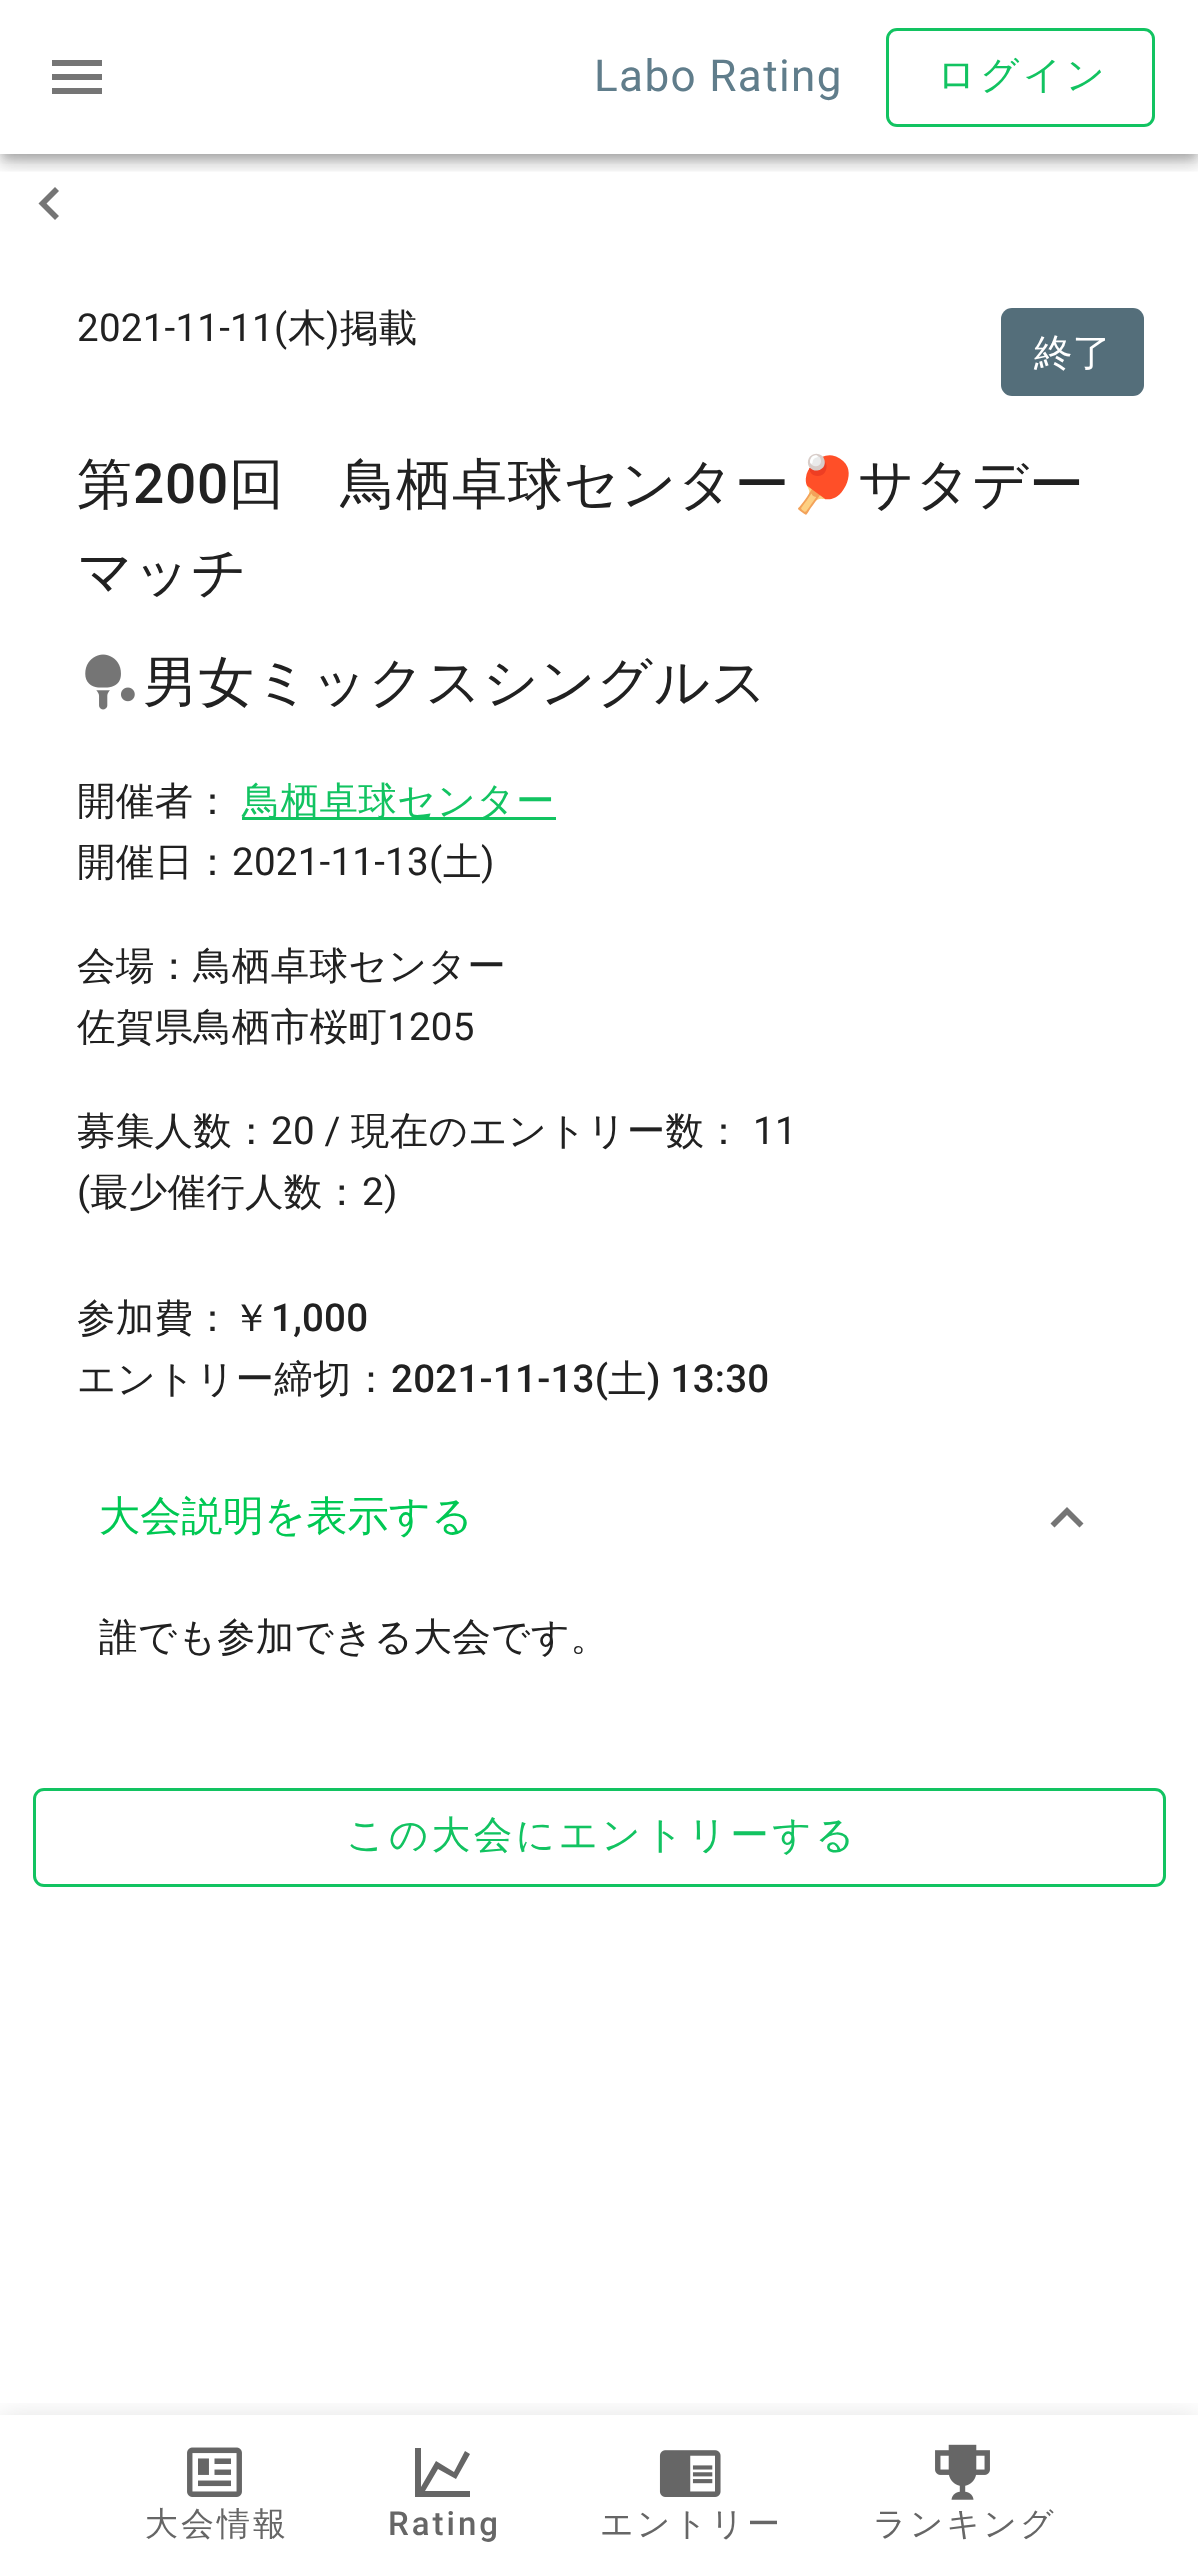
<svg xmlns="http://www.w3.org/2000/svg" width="1198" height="2566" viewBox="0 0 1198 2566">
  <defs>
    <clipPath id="clip1"><rect x="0" y="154" width="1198" height="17"/></clipPath>
    <filter id="blur1" x="-50%" y="-200%" width="200%" height="500%"><feGaussianBlur stdDeviation="14"/></filter>
    <clipPath id="clip2"><rect x="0" y="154" width="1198" height="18"/></clipPath>
    <filter id="blur2" x="-50%" y="-200%" width="200%" height="500%"><feGaussianBlur stdDeviation="7"/></filter>
    <clipPath id="clip3"><rect x="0" y="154" width="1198" height="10"/></clipPath>
    <filter id="blur3" x="-50%" y="-200%" width="200%" height="500%"><feGaussianBlur stdDeviation="5.5"/></filter>
    <clipPath id="clip4"><rect x="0" y="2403" width="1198" height="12"/></clipPath>
  </defs>
  <rect width="100%" height="100%" fill="#ffffff"/>
  <path d="M59 216L46.5 203.5L59 191L55 187L38.5 203.5L55 220Z" fill="#757575"/>
  <g clip-path="url(#clip1)">
    <rect x="0" y="3" width="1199" height="154" fill="#000000" fill-opacity="0.12" filter="url(#blur1)"/>
  </g>
  <g clip-path="url(#clip2)">
    <rect x="0" y="11" width="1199" height="154" fill="#000000" fill-opacity="0.14" filter="url(#blur2)"/>
  </g>
  <g clip-path="url(#clip3)">
    <rect x="3" y="8" width="1193" height="149" fill="#000000" fill-opacity="0.2" filter="url(#blur3)"/>
  </g>
  <path d="M52 60H102V66H52ZM52 74H102V80H52ZM52 88H102V94H52Z" fill="#757575"/>
  <text x="594" y="91" font-family="Roboto" font-size="44" letter-spacing="1.4" fill="#607d8b">Labo Rating</text>
  <rect x="887.5" y="29.5" width="266" height="96" rx="9.5" fill="none" stroke="#12c361" stroke-width="3"/>
  <text x="937" y="88" font-family="WenQuanYi Zen Hei" font-size="38.5" font-weight="500" letter-spacing="3.5" fill="#12c361">ログイン</text>
  <text x="77" y="341" font-family="Roboto" font-size="38.5" letter-spacing="0.25" fill="#212121">2021-11-11(</text>
  <text x="288" y="341" font-family="WenQuanYi Zen Hei" font-size="38.5" font-weight="500" letter-spacing="0.25" fill="#212121">木</text>
  <text x="326" y="341" font-family="Roboto" font-size="38.5" letter-spacing="0.25" fill="#212121">)</text>
  <text x="340" y="341" font-family="WenQuanYi Zen Hei" font-size="38.5" font-weight="500" letter-spacing="0.25" fill="#212121">掲載</text>
  <rect x="1001" y="308" width="143" height="88" rx="11" fill="#546e7a"/>
  <text x="1034" y="366" font-family="WenQuanYi Zen Hei" font-size="38.5" font-weight="500" fill="#ffffff">終了</text>
  <text x="77" y="503" font-family="WenQuanYi Zen Hei" font-size="55" font-weight="500" letter-spacing="0.75" fill="#212121">第</text>
  <text x="133" y="503" font-family="Roboto" font-size="55" font-weight="500" letter-spacing="0.75" fill="#212121">200</text>
  <text x="229" y="503" font-family="WenQuanYi Zen Hei" font-size="55" font-weight="500" letter-spacing="0.75" fill="#212121">回　鳥栖卓球センター</text>
  <text x="789" y="503" font-family="Noto Color Emoji" font-size="55" letter-spacing="0.75" fill="#212121">🏓</text>
  <text x="858" y="503" font-family="WenQuanYi Zen Hei" font-size="55" font-weight="500" letter-spacing="0.75" fill="#212121">サタデー</text>
  <text x="77" y="591" font-family="WenQuanYi Zen Hei" font-size="55" font-weight="500" letter-spacing="0.75" fill="#212121">マッチ</text>
  <image x="85" y="654" width="50" height="56" href="img1.png"/>
  <text x="143" y="701" font-family="WenQuanYi Zen Hei" font-size="55" font-weight="500" letter-spacing="0.75" fill="#212121">男女ミックスシングルス</text>
  <text x="77" y="814" font-family="WenQuanYi Zen Hei" font-size="38.5" font-weight="500" letter-spacing="0.25" fill="#212121">開催者：</text>
  <rect x="242" y="817" width="314" height="3" fill="#12c361"/>
  <text x="242" y="814" font-family="WenQuanYi Zen Hei" font-size="38.5" font-weight="500" letter-spacing="0.25" fill="#12c361">鳥栖卓球センター</text>
  <text x="77" y="875" font-family="WenQuanYi Zen Hei" font-size="38.5" font-weight="500" letter-spacing="0.25" fill="#212121">開催日：</text>
  <text x="232" y="875" font-family="Roboto" font-size="38.5" letter-spacing="0.25" fill="#212121">2021-11-13(</text>
  <text x="443" y="875" font-family="WenQuanYi Zen Hei" font-size="38.5" font-weight="500" letter-spacing="0.25" fill="#212121">土</text>
  <text x="481" y="875" font-family="Roboto" font-size="38.5" letter-spacing="0.25" fill="#212121">)</text>
  <text x="77" y="979" font-family="WenQuanYi Zen Hei" font-size="38.5" font-weight="500" letter-spacing="0.25" fill="#212121">会場：鳥栖卓球センター</text>
  <text x="77" y="1040" font-family="WenQuanYi Zen Hei" font-size="38.5" font-weight="500" letter-spacing="0.25" fill="#212121">佐賀県鳥栖市桜町</text>
  <text x="387" y="1040" font-family="Roboto" font-size="38.5" letter-spacing="0.25" fill="#212121">1205</text>
  <text x="77" y="1144" font-family="WenQuanYi Zen Hei" font-size="38.5" font-weight="500" letter-spacing="0.25" fill="#212121">募集人数：</text>
  <text x="271" y="1144" font-family="Roboto" font-size="38.5" letter-spacing="0.25" fill="#212121">20 /</text>
  <text x="351" y="1144" font-family="WenQuanYi Zen Hei" font-size="38.5" font-weight="500" letter-spacing="0.25" fill="#212121">現在のエントリー数：</text>
  <text x="753" y="1144" font-family="Roboto" font-size="38.5" letter-spacing="0.25" fill="#212121">11</text>
  <text x="77" y="1205" font-family="Roboto" font-size="38.5" letter-spacing="0.25" fill="#212121">(</text>
  <text x="90" y="1205" font-family="WenQuanYi Zen Hei" font-size="38.5" font-weight="500" letter-spacing="0.25" fill="#212121">最少催行人数：</text>
  <text x="362" y="1205" font-family="Roboto" font-size="38.5" letter-spacing="0.25" fill="#212121">2)</text>
  <text x="77" y="1331" font-family="WenQuanYi Zen Hei" font-size="38.5" font-weight="500" letter-spacing="0.25" fill="#212121">参加費：￥</text>
  <text x="271" y="1331" font-family="Roboto" font-size="38.5" font-weight="500" letter-spacing="0.25" fill="#212121">1,000</text>
  <text x="77" y="1392" font-family="WenQuanYi Zen Hei" font-size="38.5" font-weight="500" letter-spacing="0.25" fill="#212121">エントリー締切：</text>
  <text x="391" y="1392" font-family="Roboto" font-size="38.5" font-weight="500" letter-spacing="0.25" fill="#212121">2021-11-13(</text>
  <text x="608" y="1392" font-family="WenQuanYi Zen Hei" font-size="38.5" font-weight="500" letter-spacing="0.25" fill="#212121">土</text>
  <text x="647" y="1392" font-family="Roboto" font-size="38.5" font-weight="500" letter-spacing="0.25" fill="#212121">) 13:30</text>
  <text x="99" y="1530" font-family="WenQuanYi Zen Hei" font-size="41.25" font-weight="500" fill="#00c853">大会説明を表示する</text>
  <path d="M1079.5 1527.5L1067 1515L1054.5 1527.5L1050.5 1523.5L1067 1507L1083.5 1523.5Z" fill="#757575"/>
  <text x="99" y="1650" font-family="WenQuanYi Zen Hei" font-size="38.5" font-weight="500" letter-spacing="0.25" fill="#212121">誰でも参加できる大会です。</text>
  <rect x="34.5" y="1789.5" width="1130" height="96" rx="9.5" fill="none" stroke="#12c361" stroke-width="3"/>
  <text x="346" y="1848" font-family="WenQuanYi Zen Hei" font-size="38.5" font-weight="500" letter-spacing="3.5" fill="#12c361">この大会にエントリーする</text>
  <g clip-path="url(#clip4)">
    <rect x="0" y="2417" width="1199" height="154" fill="#000000" fill-opacity="0.12" filter="url(#blur1)"/>
  </g>
  <image x="187" y="2447" width="55" height="50" href="img2.png"/>
  <text x="145" y="2535" font-family="WenQuanYi Zen Hei" font-size="33" font-weight="500" letter-spacing="3" fill="#666666">大会情報</text>
  <path d="M454 2472L465 2451L470 2454L456 2479L438 2469L425 2491H470V2497H415V2448H421V2487L436 2461Z" fill="#666666"/>
  <text x="388" y="2535" font-family="Roboto" font-size="33" font-weight="500" letter-spacing="3" fill="#666666">Rating</text>
  <image x="659" y="2450" width="62" height="47" href="img3.png"/>
  <text x="600" y="2535" font-family="WenQuanYi Zen Hei" font-size="33" font-weight="500" letter-spacing="3" fill="#666666">エントリー</text>
  <image x="935" y="2444" width="55" height="56" href="img4.png"/>
  <text x="873" y="2535" font-family="WenQuanYi Zen Hei" font-size="33" font-weight="500" letter-spacing="3" fill="#666666">ランキング</text>
</svg>
